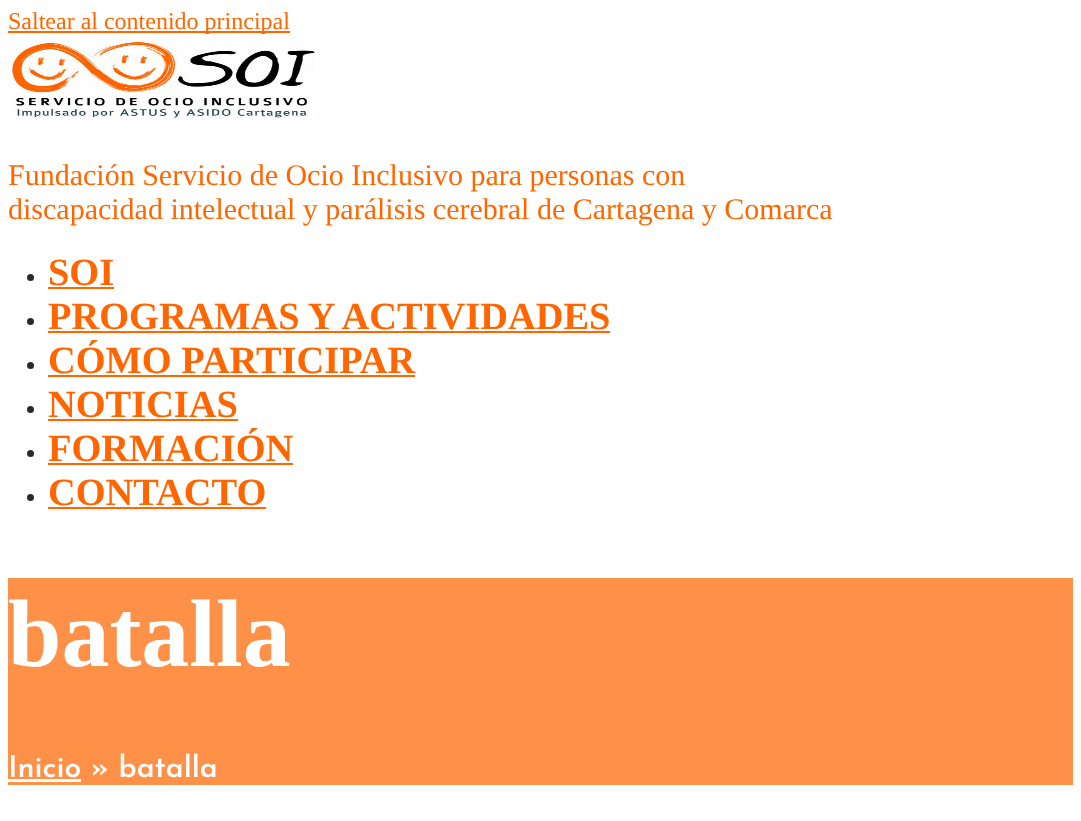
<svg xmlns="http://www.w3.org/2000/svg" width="1081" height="821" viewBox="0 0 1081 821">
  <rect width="100%" height="100%" fill="#ffffff"/>
  <rect x="8" y="31" width="282" height="2" fill="#ff6600"/>
  <text x="8" y="29" font-family="Liberation Serif" font-size="24" fill="#ff6600">Saltear al contenido principal</text>
  <image x="8" y="41" width="307" height="78" href="img1.png"/>
  <text x="8" y="185" font-family="Liberation Serif" font-size="30" fill="#ff6600">Fundación Servicio de Ocio Inclusivo para personas con</text>
  <text x="8" y="219" font-family="Liberation Serif" font-size="30" fill="#ff6600">discapacidad intelectual y parálisis cerebral de Cartagena y Comarca</text>
  <circle cx="30.5" cy="277.5" r="3.5" fill="#2b2b2b"/>
  <text x="48" y="285" font-family="Liberation Serif" font-size="38.4" font-weight="bold" fill="#ff6600">SOI</text>
  <rect x="48" y="287" width="66" height="2" fill="#ff6600"/>
  <circle cx="30.5" cy="321.5" r="3.5" fill="#2b2b2b"/>
  <text x="48" y="329" font-family="Liberation Serif" font-size="38.4" font-weight="bold" fill="#ff6600">PROGRAMAS Y ACTIVIDADES</text>
  <rect x="48" y="331" width="562" height="2" fill="#ff6600"/>
  <circle cx="30.5" cy="365.5" r="3.5" fill="#2b2b2b"/>
  <text x="48" y="373" font-family="Liberation Serif" font-size="38.4" font-weight="bold" fill="#ff6600">CÓMO PARTICIPAR</text>
  <rect x="48" y="375" width="367" height="2" fill="#ff6600"/>
  <circle cx="30.5" cy="409.5" r="3.5" fill="#2b2b2b"/>
  <text x="48" y="417" font-family="Liberation Serif" font-size="38.4" font-weight="bold" fill="#ff6600">NOTICIAS</text>
  <rect x="48" y="419" width="190" height="2" fill="#ff6600"/>
  <circle cx="30.5" cy="453.5" r="3.5" fill="#2b2b2b"/>
  <text x="48" y="461" font-family="Liberation Serif" font-size="38.4" font-weight="bold" fill="#ff6600">FORMACIÓN</text>
  <rect x="48" y="463" width="245" height="2" fill="#ff6600"/>
  <circle cx="30.5" cy="497.5" r="3.5" fill="#2b2b2b"/>
  <text x="48" y="505" font-family="Liberation Serif" font-size="38.4" font-weight="bold" fill="#ff6600">CONTACTO</text>
  <rect x="48" y="507" width="218" height="2" fill="#ff6600"/>
  <rect x="8" y="578" width="1065" height="207" fill="#ff9047"/>
  <text x="8" y="666" font-family="Liberation Serif" font-size="96" font-weight="bold" fill="#ffffff">batalla</text>
  <text x="8" y="777" font-family="Josefin Sans" font-size="30" font-weight="600" fill="#ffffff">Inicio » batalla</text>
  <rect x="8" y="779" width="73" height="3" fill="#ffffff"/>
</svg>
